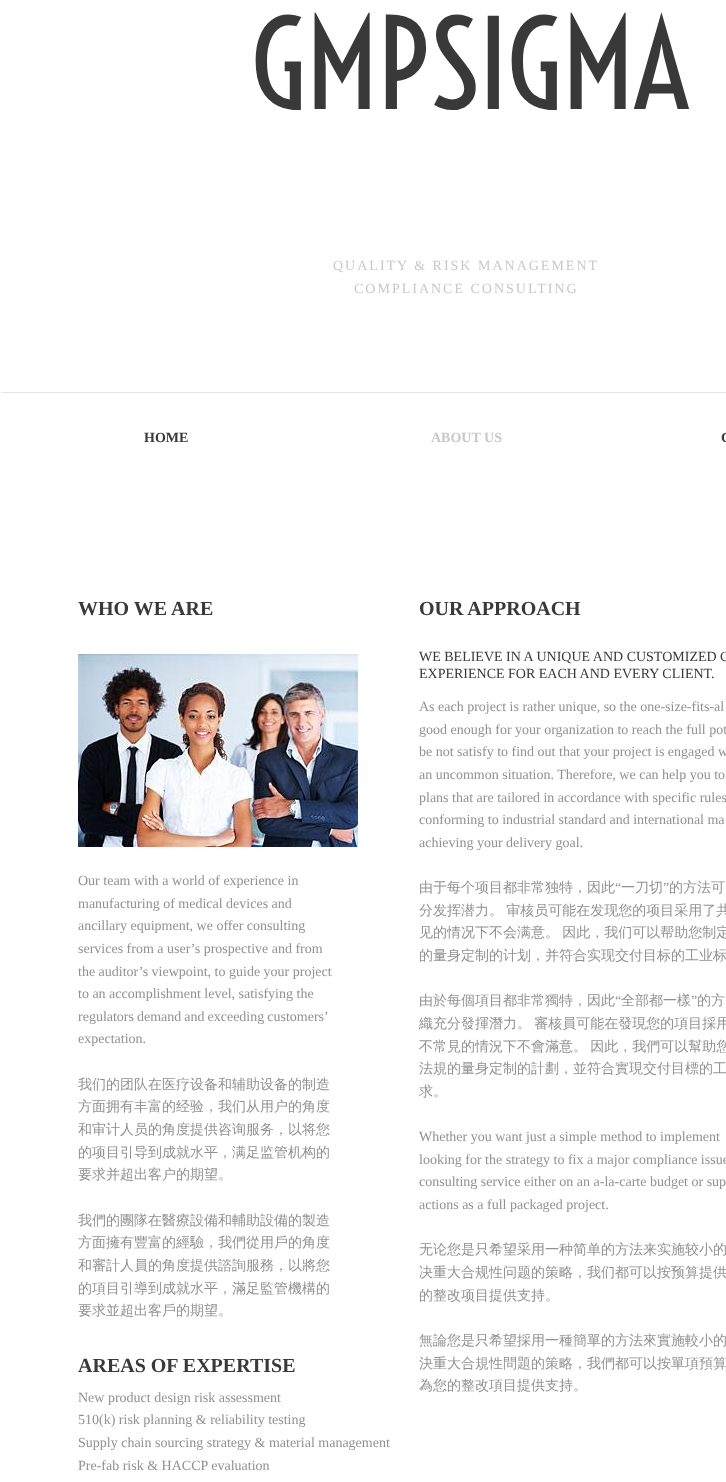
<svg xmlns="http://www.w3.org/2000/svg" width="726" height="1482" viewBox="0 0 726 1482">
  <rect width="100%" height="100%" fill="#ffffff"/>
  <text x="250" y="109" font-family="Voltaire" font-size="120" letter-spacing="-1" fill="#3a3939">GMPSIGMA</text>
  <text x="333" y="270" font-family="Liberation Serif" font-size="14" letter-spacing="2" fill="#c8c8c8">QUALITY &amp; RISK MANAGEMENT</text>
  <text x="354" y="293" font-family="Liberation Serif" font-size="14" letter-spacing="2" fill="#c8c8c8">COMPLIANCE CONSULTING</text>
  <rect x="1" y="392" width="725" height="1" fill="#e5e5e5"/>
  <text x="144" y="442" font-family="Liberation Serif" font-size="14" font-weight="bold" fill="#3a3939">HOME</text>
  <text x="431" y="442" font-family="Liberation Serif" font-size="14" font-weight="bold" fill="#c8c8c8">ABOUT US</text>
  <text x="721" y="442" font-family="Liberation Serif" font-size="14" font-weight="bold" fill="#3a3939">C</text>
  <text x="78" y="615" font-family="Liberation Serif" font-size="20" font-weight="bold" fill="#3a3939">WHO WE ARE</text>
  <text x="419" y="615" font-family="Liberation Serif" font-size="20" font-weight="bold" fill="#3a3939">OUR APPROACH</text>
  <image x="78" y="654" width="280" height="193" href="img1.png"/>
  <text x="419" y="661" font-family="Liberation Serif" font-size="14" fill="#3a3939">WE BELIEVE IN A UNIQUE AND CUSTOMIZED C</text>
  <text x="419" y="678" font-family="Liberation Serif" font-size="14" fill="#3a3939">EXPERIENCE FOR EACH AND EVERY CLIENT.</text>
  <text x="78" y="885" font-family="Liberation Serif" font-size="14" fill="#919191">Our team with a world of experience in</text>
  <text x="78" y="908" font-family="Liberation Serif" font-size="14" fill="#919191">manufacturing of medical devices and</text>
  <text x="78" y="930" font-family="Liberation Serif" font-size="14" fill="#919191">ancillary equipment, we offer consulting</text>
  <text x="78" y="953" font-family="Liberation Serif" font-size="14" fill="#919191">services from a user’s prospective and from</text>
  <text x="78" y="976" font-family="Liberation Serif" font-size="14" fill="#919191">the auditor’s viewpoint, to guide your project</text>
  <text x="78" y="998" font-family="Liberation Serif" font-size="14" fill="#919191">to an accomplishment level, satisfying the</text>
  <text x="78" y="1021" word-spacing="-0.5" font-family="Liberation Serif" font-size="14" fill="#919191">regulators demand and exceeding customers’</text>
  <text x="78" y="1043" font-family="Liberation Serif" font-size="14" fill="#919191">expectation.</text>
  <text x="78" y="1089" font-family="WenQuanYi Zen Hei" font-size="14" font-weight="500" fill="#919191">我们的团队在医疗设备和辅助设备的制造</text>
  <text x="78" y="1111" font-family="WenQuanYi Zen Hei" font-size="14" font-weight="500" fill="#919191">方面拥有丰富的经验，我们从用户的角度</text>
  <text x="78" y="1134" font-family="WenQuanYi Zen Hei" font-size="14" font-weight="500" fill="#919191">和审计人员的角度提供咨询服务，以将您</text>
  <text x="78" y="1157" font-family="WenQuanYi Zen Hei" font-size="14" font-weight="500" fill="#919191">的项目引导到成就水平，满足监管机构的</text>
  <text x="78" y="1179" font-family="WenQuanYi Zen Hei" font-size="14" font-weight="500" fill="#919191">要求并超出客户的期望。</text>
  <text x="78" y="1225" font-family="WenQuanYi Zen Hei" font-size="14" font-weight="500" fill="#919191">我們的團隊在醫療設備和輔助設備的製造</text>
  <text x="78" y="1247" font-family="WenQuanYi Zen Hei" font-size="14" font-weight="500" fill="#919191">方面擁有豐富的經驗，我們從用戶的角度</text>
  <text x="78" y="1270" font-family="WenQuanYi Zen Hei" font-size="14" font-weight="500" fill="#919191">和審計人員的角度提供諮詢服務，以將您</text>
  <text x="78" y="1293" font-family="WenQuanYi Zen Hei" font-size="14" font-weight="500" fill="#919191">的項目引導到成就水平，滿足監管機構的</text>
  <text x="78" y="1315" font-family="WenQuanYi Zen Hei" font-size="14" font-weight="500" fill="#919191">要求並超出客戶的期望。</text>
  <text x="419" y="711" font-family="Liberation Serif" font-size="14" fill="#919191">As each project is rather unique, so the one-size-fits-al</text>
  <text x="419" y="734" font-family="Liberation Serif" font-size="14" fill="#919191">good enough for your organization to reach the full pot</text>
  <text x="419" y="756" font-family="Liberation Serif" font-size="14" fill="#919191">be not satisfy to find out that your project is engaged w</text>
  <text x="419" y="779" font-family="Liberation Serif" font-size="14" fill="#919191">an uncommon situation. Therefore, we can help you to</text>
  <text x="419" y="802" font-family="Liberation Serif" font-size="14" fill="#919191">plans that are tailored in accordance with specific rules</text>
  <text x="419" y="824" font-family="Liberation Serif" font-size="14" fill="#919191">conforming to industrial standard and international ma</text>
  <text x="419" y="847" font-family="Liberation Serif" font-size="14" fill="#919191">achieving your delivery goal.</text>
  <text x="419" y="892" font-family="WenQuanYi Zen Hei" font-size="14" font-weight="500" fill="#919191">由于每个项目都非常独特，因此</text>
  <text x="615" y="892" font-family="Liberation Serif" font-size="14" fill="#919191">“</text>
  <text x="621" y="892" font-family="WenQuanYi Zen Hei" font-size="14" font-weight="500" fill="#919191">一刀切</text>
  <text x="663" y="892" font-family="Liberation Serif" font-size="14" fill="#919191">”</text>
  <text x="669" y="892" font-family="WenQuanYi Zen Hei" font-size="14" font-weight="500" fill="#919191">的方法可</text>
  <text x="419" y="915" word-spacing="-1" font-family="WenQuanYi Zen Hei" font-size="14" font-weight="500" fill="#919191">分发挥潜力。 审核员可能在发现您的项目采用了共</text>
  <text x="419" y="937" word-spacing="-1" font-family="WenQuanYi Zen Hei" font-size="14" font-weight="500" fill="#919191">见的情况下不会满意。 因此，我们可以帮助您制定</text>
  <text x="419" y="960" font-family="WenQuanYi Zen Hei" font-size="14" font-weight="500" fill="#919191">的量身定制的计划，并符合实现交付目标的工业标</text>
  <text x="419" y="1005" font-family="WenQuanYi Zen Hei" font-size="14" font-weight="500" fill="#919191">由於每個項目都非常獨特，因此</text>
  <text x="615" y="1005" font-family="Liberation Serif" font-size="14" fill="#919191">“</text>
  <text x="621" y="1005" font-family="WenQuanYi Zen Hei" font-size="14" font-weight="500" fill="#919191">全部都一樣</text>
  <text x="691" y="1005" font-family="Liberation Serif" font-size="14" fill="#919191">”</text>
  <text x="697" y="1005" font-family="WenQuanYi Zen Hei" font-size="14" font-weight="500" fill="#919191">的方</text>
  <text x="419" y="1028" word-spacing="-1" font-family="WenQuanYi Zen Hei" font-size="14" font-weight="500" fill="#919191">織充分發揮潛力。 審核員可能在發現您的項目採用</text>
  <text x="419" y="1051" word-spacing="-1" font-family="WenQuanYi Zen Hei" font-size="14" font-weight="500" fill="#919191">不常見的情況下不會滿意。 因此，我們可以幫助您</text>
  <text x="419" y="1073" font-family="WenQuanYi Zen Hei" font-size="14" font-weight="500" fill="#919191">法規的量身定制的計劃，並符合實現交付目標的工</text>
  <text x="419" y="1096" font-family="WenQuanYi Zen Hei" font-size="14" font-weight="500" fill="#919191">求。</text>
  <text x="419" y="1141" font-family="Liberation Serif" font-size="14" fill="#919191">Whether you want just a simple method to implement</text>
  <text x="419" y="1164" font-family="Liberation Serif" font-size="14" fill="#919191">looking for the strategy to fix a major compliance issue</text>
  <text x="419" y="1186" font-family="Liberation Serif" font-size="14" fill="#919191">consulting service either on an a-la-carte budget or sup</text>
  <text x="419" y="1209" font-family="Liberation Serif" font-size="14" fill="#919191">actions as a full packaged project.</text>
  <text x="419" y="1254" font-family="WenQuanYi Zen Hei" font-size="14" font-weight="500" fill="#919191">无论您是只希望采用一种简单的方法来实施较小的</text>
  <text x="419" y="1277" font-family="WenQuanYi Zen Hei" font-size="14" font-weight="500" fill="#919191">决重大合规性问题的策略，我们都可以按预算提供</text>
  <text x="419" y="1300" font-family="WenQuanYi Zen Hei" font-size="14" font-weight="500" fill="#919191">的整改项目提供支持。</text>
  <text x="419" y="1345" font-family="WenQuanYi Zen Hei" font-size="14" font-weight="500" fill="#919191">無論您是只希望採用一種簡單的方法來實施較小的</text>
  <text x="419" y="1368" font-family="WenQuanYi Zen Hei" font-size="14" font-weight="500" fill="#919191">決重大合規性問題的策略，我們都可以按單項預算</text>
  <text x="419" y="1390" font-family="WenQuanYi Zen Hei" font-size="14" font-weight="500" fill="#919191">為您的整改項目提供支持。</text>
  <text x="78" y="1372" font-family="Liberation Serif" font-size="20" font-weight="bold" fill="#3a3939">AREAS OF EXPERTISE</text>
  <text x="78" y="1402" font-family="Liberation Serif" font-size="14" fill="#919191">New product design risk assessment</text>
  <text x="78" y="1424" font-family="Liberation Serif" font-size="14" fill="#919191">510(k) risk planning &amp; reliability testing</text>
  <text x="78" y="1447" font-family="Liberation Serif" font-size="14" fill="#919191">Supply chain sourcing strategy &amp; material management</text>
  <text x="78" y="1470" font-family="Liberation Serif" font-size="14" fill="#919191">Pre-fab risk &amp; HACCP evaluation</text>
</svg>
